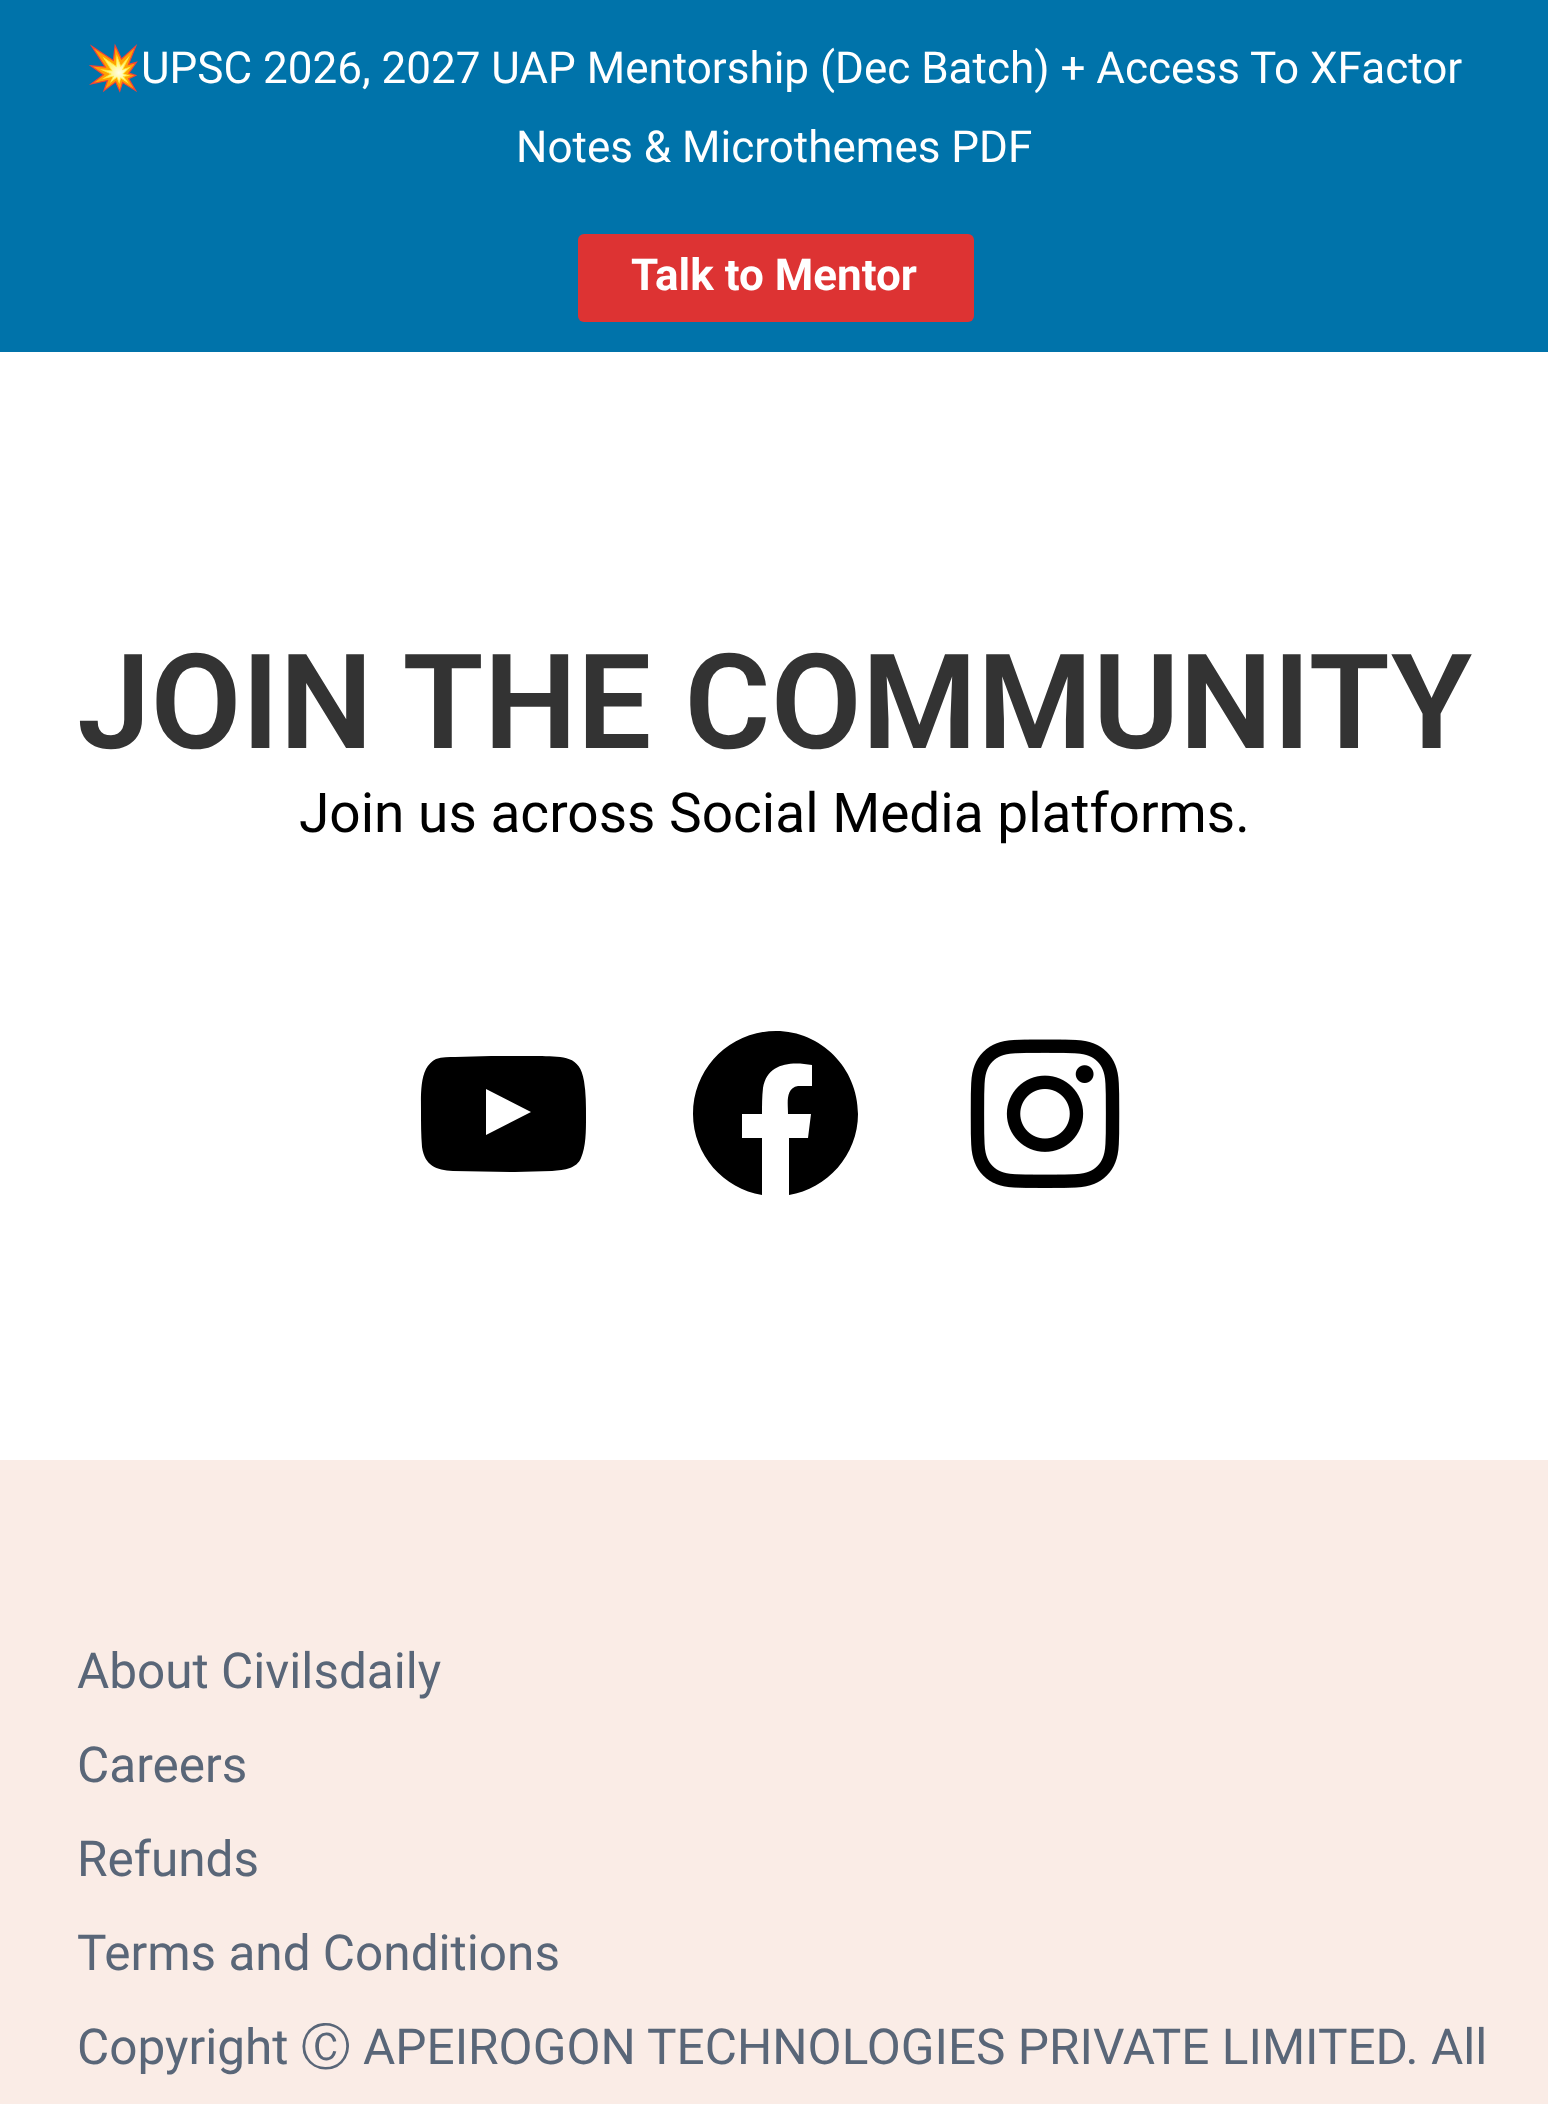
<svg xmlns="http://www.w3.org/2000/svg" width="1548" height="2104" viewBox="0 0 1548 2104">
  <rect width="100%" height="100%" fill="#ffffff"/>
  <rect x="0" y="0" width="1548" height="352" fill="#0073aa"/>
  <text x="86" y="83" font-family="Noto Color Emoji" font-size="44" fill="#ffffff">💥</text>
  <text x="141" y="83" font-family="Roboto" font-size="44" fill="#ffffff">UPSC 2026, 2027 UAP Mentorship (Dec Batch) + Access To XFactor</text>
  <text x="516" y="162" font-family="Roboto" font-size="44" fill="#ffffff">Notes &amp; Microthemes PDF</text>
  <rect x="578" y="234" width="396" height="88" rx="6" fill="#dd3333"/>
  <text x="631" y="290" font-family="Roboto" font-size="44" font-weight="bold" fill="#ffffff">Talk to Mentor</text>
  <text x="77" y="748" font-family="Roboto" font-size="132" font-weight="600" fill="#333333">JOIN THE COMMUNITY</text>
  <text x="299" y="832" font-family="Roboto" font-size="55" fill="#000000">Join us across Social Media platforms.</text>
  <path d="M584 1081C580 1055 563 1057 542 1056H491L455 1057C449 1057 442 1057 436 1059C432 1061 428 1065 426 1069C420 1081 421 1099 421 1112C421 1123 421 1135 422 1147C425 1166 436 1170 453 1171L515 1172L552 1171C558 1170 565 1170 570 1168C575 1166 579 1163 581 1158C586 1147 586 1130 586 1118C586 1105 586 1093 584 1081ZM486 1135V1089L531 1112Z" fill="#000000"/>
  <path d="M776 1031C730 1031 693 1068 693 1114C693 1155 724 1189 762 1195V1138H742V1114H762C762 1105 762 1097 763 1088C767 1063 791 1061 812 1065V1086H798C785 1088 788 1104 788 1114H811L808 1138H789V1195C827 1189 858 1155 858 1114C858 1068 821 1031 776 1031Z" fill="#000000"/>
  <image x="970" y="1039" width="150" height="149" href="img1.png"/>
  <rect x="0" y="1460" width="1548" height="644" fill="#faece6"/>
  <text x="77" y="1688" font-family="Roboto" font-size="49.5" fill="#596678">About Civilsdaily</text>
  <text x="77" y="1782" font-family="Roboto" font-size="49.5" fill="#596678">Careers</text>
  <text x="77" y="1876" font-family="Roboto" font-size="49.5" fill="#596678">Refunds</text>
  <text x="77" y="1970" font-family="Roboto" font-size="49.5" fill="#596678">Terms and Conditions</text>
  <text x="77" y="2064" font-family="Roboto" font-size="49.5" fill="#596678">Copyright</text>
  <text x="301" y="2064" font-family="WenQuanYi Zen Hei" font-size="49.5" font-weight="500" fill="#596678">Ⓒ</text>
  <text x="363" y="2064" font-family="Roboto" font-size="49.5" fill="#596678">APEIROGON TECHNOLOGIES PRIVATE LIMITED. All</text>
</svg>
